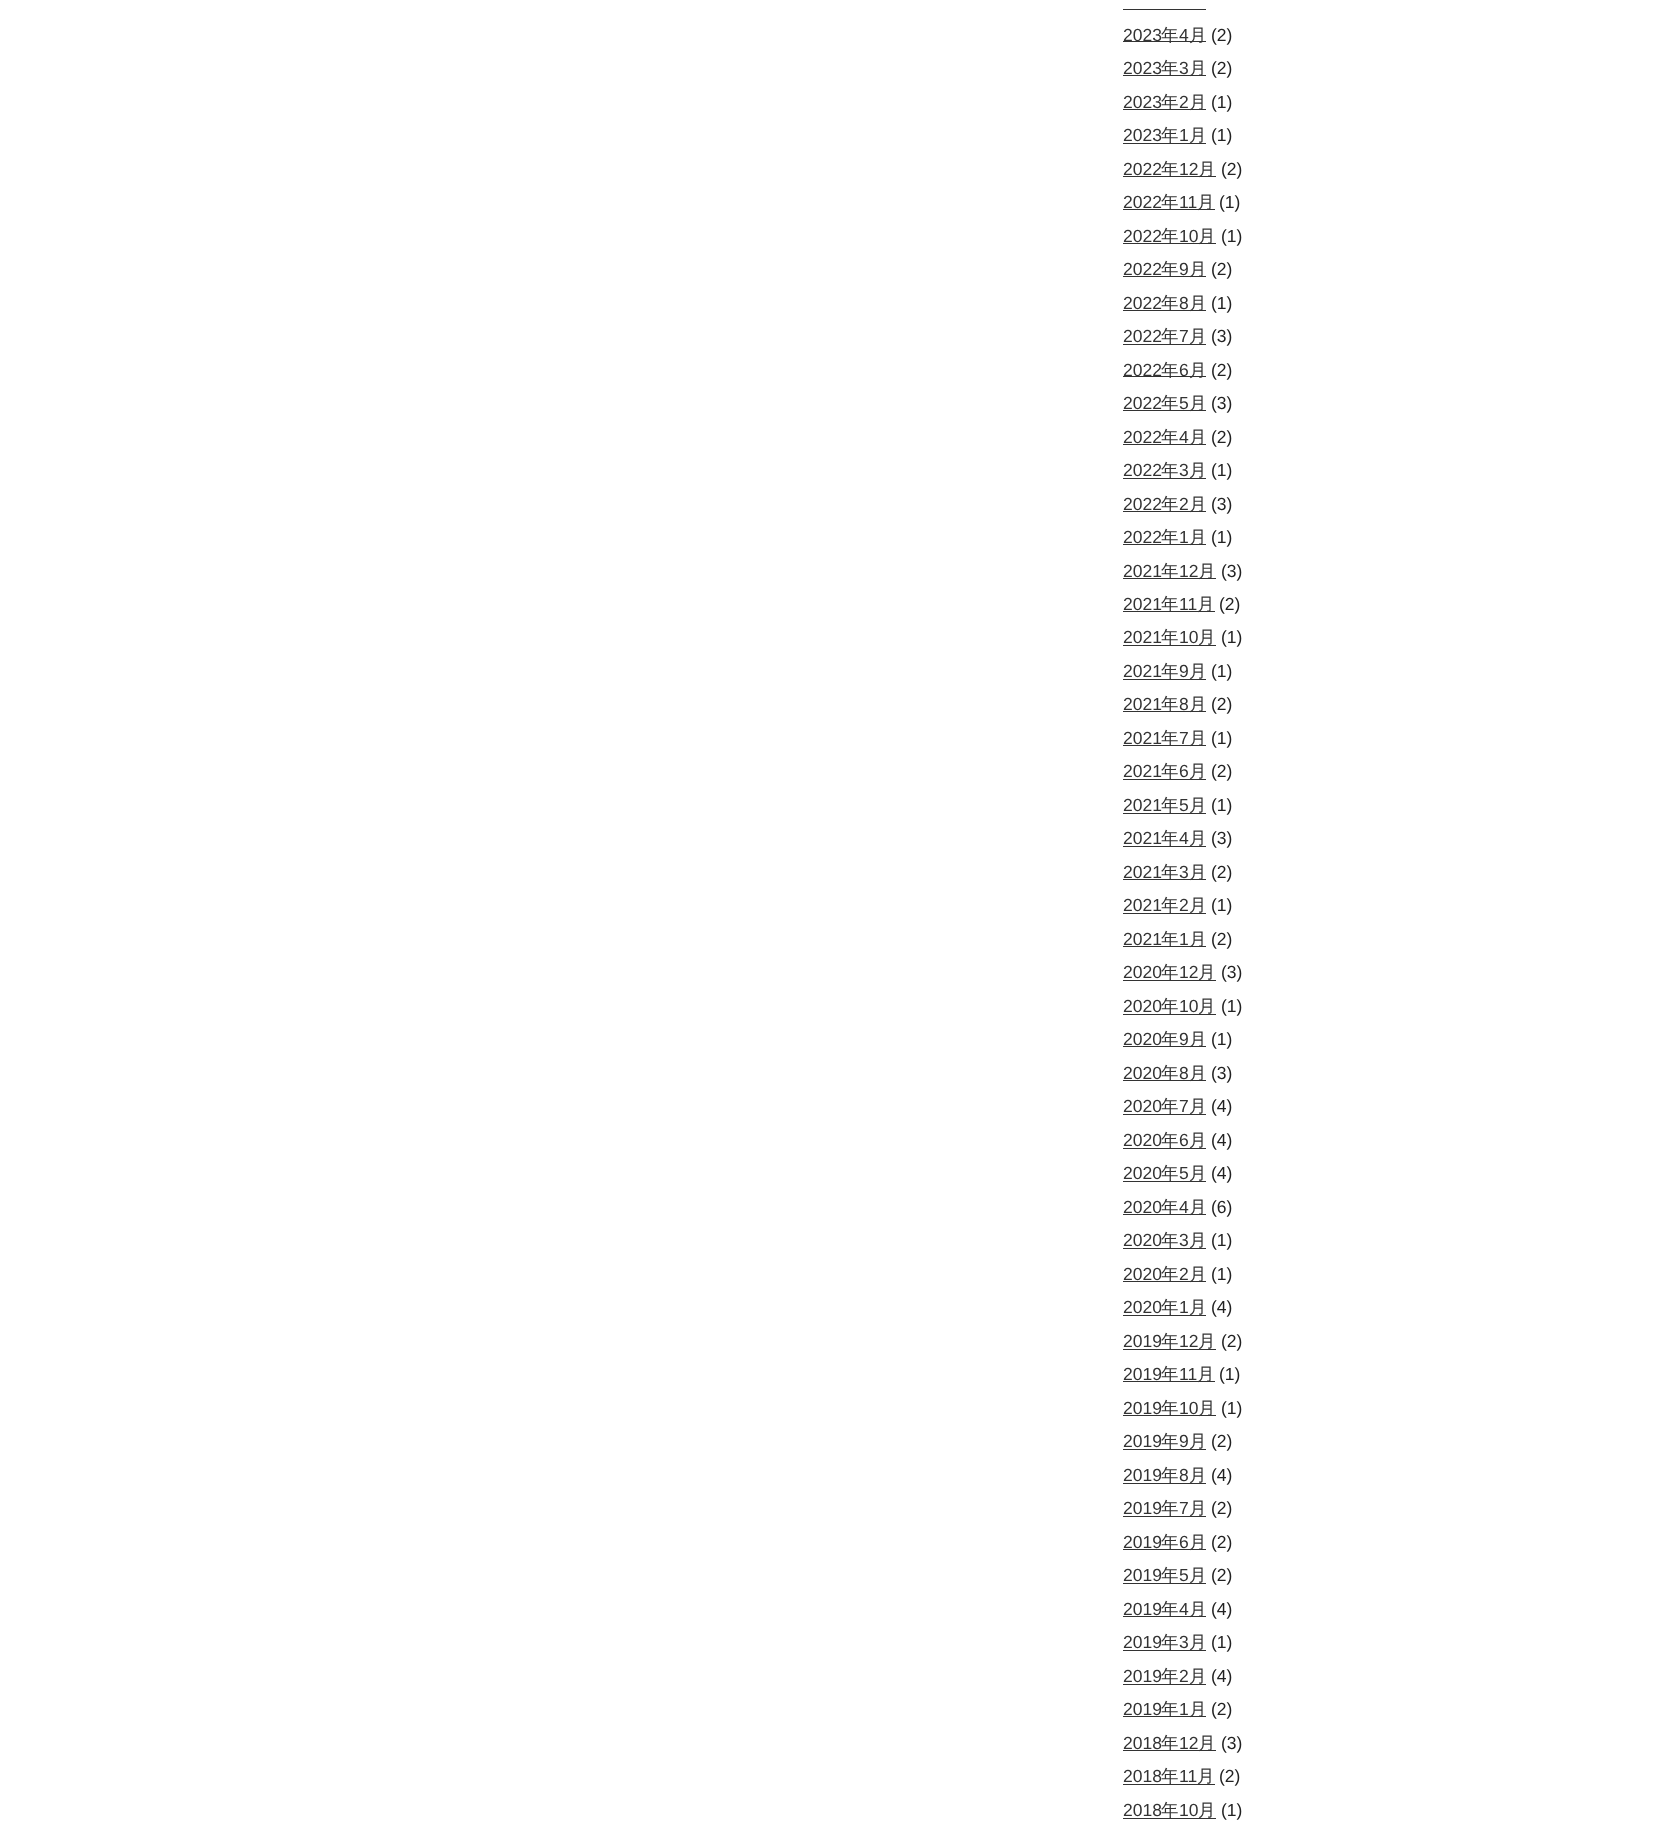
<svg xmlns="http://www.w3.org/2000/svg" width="1669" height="1833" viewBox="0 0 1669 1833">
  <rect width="100%" height="100%" fill="#ffffff"/>
  <rect x="1123" y="9" width="83" height="1" fill="#333333"/>
  <rect x="1123" y="41" width="83" height="1" fill="#333333"/>
  <text x="1123" y="41" font-family="Liberation Sans" font-size="17.5" fill="#333333">2023</text>
  <text x="1161" y="41" font-family="WenQuanYi Zen Hei" font-size="17.5" font-weight="500" fill="#333333">年</text>
  <text x="1179" y="41" font-family="Liberation Sans" font-size="17.5" fill="#333333">4</text>
  <text x="1189" y="41" font-family="WenQuanYi Zen Hei" font-size="17.5" font-weight="500" fill="#333333">月</text>
  <text x="1211" y="41" font-family="Liberation Sans" font-size="17.5" fill="#222222">(2)</text>
  <text x="1123" y="74" font-family="Liberation Sans" font-size="17.5" fill="#333333">2023</text>
  <rect x="1123" y="75" width="83" height="1" fill="#333333"/>
  <text x="1161" y="74" font-family="WenQuanYi Zen Hei" font-size="17.5" font-weight="500" fill="#333333">年</text>
  <text x="1179" y="74" font-family="Liberation Sans" font-size="17.5" fill="#333333">3</text>
  <text x="1189" y="74" font-family="WenQuanYi Zen Hei" font-size="17.5" font-weight="500" fill="#333333">月</text>
  <text x="1211" y="74" font-family="Liberation Sans" font-size="17.5" fill="#222222">(2)</text>
  <text x="1123" y="108" font-family="Liberation Sans" font-size="17.5" fill="#333333">2023</text>
  <rect x="1123" y="109" width="83" height="1" fill="#333333"/>
  <text x="1161" y="108" font-family="WenQuanYi Zen Hei" font-size="17.5" font-weight="500" fill="#333333">年</text>
  <text x="1179" y="108" font-family="Liberation Sans" font-size="17.5" fill="#333333">2</text>
  <text x="1189" y="108" font-family="WenQuanYi Zen Hei" font-size="17.5" font-weight="500" fill="#333333">月</text>
  <text x="1211" y="108" font-family="Liberation Sans" font-size="17.5" fill="#222222">(1)</text>
  <text x="1123" y="141" font-family="Liberation Sans" font-size="17.5" fill="#333333">2023</text>
  <rect x="1123" y="143" width="83" height="1" fill="#333333"/>
  <text x="1161" y="141" font-family="WenQuanYi Zen Hei" font-size="17.5" font-weight="500" fill="#333333">年</text>
  <text x="1179" y="141" font-family="Liberation Sans" font-size="17.5" fill="#333333">1</text>
  <text x="1189" y="141" font-family="WenQuanYi Zen Hei" font-size="17.5" font-weight="500" fill="#333333">月</text>
  <text x="1211" y="141" font-family="Liberation Sans" font-size="17.5" fill="#222222">(1)</text>
  <text x="1123" y="175" font-family="Liberation Sans" font-size="17.5" fill="#333333">2022</text>
  <rect x="1123" y="176" width="93" height="1" fill="#333333"/>
  <text x="1161" y="175" font-family="WenQuanYi Zen Hei" font-size="17.5" font-weight="500" fill="#333333">年</text>
  <text x="1179" y="175" font-family="Liberation Sans" font-size="17.5" fill="#333333">12</text>
  <text x="1198" y="175" font-family="WenQuanYi Zen Hei" font-size="17.5" font-weight="500" fill="#333333">月</text>
  <text x="1221" y="175" font-family="Liberation Sans" font-size="17.5" fill="#222222">(2)</text>
  <text x="1123" y="208" font-family="Liberation Sans" font-size="17.5" fill="#333333">2022</text>
  <rect x="1123" y="209" width="92" height="1" fill="#333333"/>
  <text x="1161" y="208" font-family="WenQuanYi Zen Hei" font-size="17.5" font-weight="500" fill="#333333">年</text>
  <text x="1179" y="208" font-family="Liberation Sans" font-size="17.5" fill="#333333">11</text>
  <text x="1197" y="208" font-family="WenQuanYi Zen Hei" font-size="17.5" font-weight="500" fill="#333333">月</text>
  <text x="1219" y="208" font-family="Liberation Sans" font-size="17.5" fill="#222222">(1)</text>
  <text x="1123" y="242" font-family="Liberation Sans" font-size="17.5" fill="#333333">2022</text>
  <rect x="1123" y="243" width="93" height="1" fill="#333333"/>
  <text x="1161" y="242" font-family="WenQuanYi Zen Hei" font-size="17.5" font-weight="500" fill="#333333">年</text>
  <text x="1179" y="242" font-family="Liberation Sans" font-size="17.5" fill="#333333">10</text>
  <text x="1198" y="242" font-family="WenQuanYi Zen Hei" font-size="17.5" font-weight="500" fill="#333333">月</text>
  <text x="1221" y="242" font-family="Liberation Sans" font-size="17.5" fill="#222222">(1)</text>
  <text x="1123" y="275" font-family="Liberation Sans" font-size="17.5" fill="#333333">2022</text>
  <rect x="1123" y="276" width="83" height="1" fill="#333333"/>
  <text x="1161" y="275" font-family="WenQuanYi Zen Hei" font-size="17.5" font-weight="500" fill="#333333">年</text>
  <text x="1179" y="275" font-family="Liberation Sans" font-size="17.5" fill="#333333">9</text>
  <text x="1189" y="275" font-family="WenQuanYi Zen Hei" font-size="17.5" font-weight="500" fill="#333333">月</text>
  <text x="1211" y="275" font-family="Liberation Sans" font-size="17.5" fill="#222222">(2)</text>
  <text x="1123" y="309" font-family="Liberation Sans" font-size="17.5" fill="#333333">2022</text>
  <rect x="1123" y="310" width="83" height="1" fill="#333333"/>
  <text x="1161" y="309" font-family="WenQuanYi Zen Hei" font-size="17.5" font-weight="500" fill="#333333">年</text>
  <text x="1179" y="309" font-family="Liberation Sans" font-size="17.5" fill="#333333">8</text>
  <text x="1189" y="309" font-family="WenQuanYi Zen Hei" font-size="17.5" font-weight="500" fill="#333333">月</text>
  <text x="1211" y="309" font-family="Liberation Sans" font-size="17.5" fill="#222222">(1)</text>
  <text x="1123" y="342" font-family="Liberation Sans" font-size="17.5" fill="#333333">2022</text>
  <rect x="1123" y="344" width="83" height="1" fill="#333333"/>
  <text x="1161" y="342" font-family="WenQuanYi Zen Hei" font-size="17.5" font-weight="500" fill="#333333">年</text>
  <text x="1179" y="342" font-family="Liberation Sans" font-size="17.5" fill="#333333">7</text>
  <text x="1189" y="342" font-family="WenQuanYi Zen Hei" font-size="17.5" font-weight="500" fill="#333333">月</text>
  <text x="1211" y="342" font-family="Liberation Sans" font-size="17.5" fill="#222222">(3)</text>
  <rect x="1123" y="376" width="83" height="1" fill="#333333"/>
  <text x="1123" y="376" font-family="Liberation Sans" font-size="17.5" fill="#333333">2022</text>
  <text x="1161" y="376" font-family="WenQuanYi Zen Hei" font-size="17.5" font-weight="500" fill="#333333">年</text>
  <text x="1179" y="376" font-family="Liberation Sans" font-size="17.5" fill="#333333">6</text>
  <text x="1189" y="376" font-family="WenQuanYi Zen Hei" font-size="17.5" font-weight="500" fill="#333333">月</text>
  <text x="1211" y="376" font-family="Liberation Sans" font-size="17.5" fill="#222222">(2)</text>
  <text x="1123" y="409" font-family="Liberation Sans" font-size="17.5" fill="#333333">2022</text>
  <rect x="1123" y="410" width="83" height="1" fill="#333333"/>
  <text x="1161" y="409" font-family="WenQuanYi Zen Hei" font-size="17.5" font-weight="500" fill="#333333">年</text>
  <text x="1179" y="409" font-family="Liberation Sans" font-size="17.5" fill="#333333">5</text>
  <text x="1189" y="409" font-family="WenQuanYi Zen Hei" font-size="17.5" font-weight="500" fill="#333333">月</text>
  <text x="1211" y="409" font-family="Liberation Sans" font-size="17.5" fill="#222222">(3)</text>
  <text x="1123" y="443" font-family="Liberation Sans" font-size="17.5" fill="#333333">2022</text>
  <rect x="1123" y="444" width="83" height="1" fill="#333333"/>
  <text x="1161" y="443" font-family="WenQuanYi Zen Hei" font-size="17.5" font-weight="500" fill="#333333">年</text>
  <text x="1179" y="443" font-family="Liberation Sans" font-size="17.5" fill="#333333">4</text>
  <text x="1189" y="443" font-family="WenQuanYi Zen Hei" font-size="17.5" font-weight="500" fill="#333333">月</text>
  <text x="1211" y="443" font-family="Liberation Sans" font-size="17.5" fill="#222222">(2)</text>
  <text x="1123" y="476" font-family="Liberation Sans" font-size="17.5" fill="#333333">2022</text>
  <rect x="1123" y="478" width="83" height="1" fill="#333333"/>
  <text x="1161" y="476" font-family="WenQuanYi Zen Hei" font-size="17.5" font-weight="500" fill="#333333">年</text>
  <text x="1179" y="476" font-family="Liberation Sans" font-size="17.5" fill="#333333">3</text>
  <text x="1189" y="476" font-family="WenQuanYi Zen Hei" font-size="17.5" font-weight="500" fill="#333333">月</text>
  <text x="1211" y="476" font-family="Liberation Sans" font-size="17.5" fill="#222222">(1)</text>
  <text x="1123" y="510" font-family="Liberation Sans" font-size="17.5" fill="#333333">2022</text>
  <rect x="1123" y="511" width="83" height="1" fill="#333333"/>
  <text x="1161" y="510" font-family="WenQuanYi Zen Hei" font-size="17.5" font-weight="500" fill="#333333">年</text>
  <text x="1179" y="510" font-family="Liberation Sans" font-size="17.5" fill="#333333">2</text>
  <text x="1189" y="510" font-family="WenQuanYi Zen Hei" font-size="17.5" font-weight="500" fill="#333333">月</text>
  <text x="1211" y="510" font-family="Liberation Sans" font-size="17.5" fill="#222222">(3)</text>
  <text x="1123" y="543" font-family="Liberation Sans" font-size="17.5" fill="#333333">2022</text>
  <rect x="1123" y="544" width="83" height="1" fill="#333333"/>
  <text x="1161" y="543" font-family="WenQuanYi Zen Hei" font-size="17.5" font-weight="500" fill="#333333">年</text>
  <text x="1179" y="543" font-family="Liberation Sans" font-size="17.5" fill="#333333">1</text>
  <text x="1189" y="543" font-family="WenQuanYi Zen Hei" font-size="17.5" font-weight="500" fill="#333333">月</text>
  <text x="1211" y="543" font-family="Liberation Sans" font-size="17.5" fill="#222222">(1)</text>
  <text x="1123" y="577" font-family="Liberation Sans" font-size="17.5" fill="#333333">2021</text>
  <rect x="1123" y="578" width="93" height="1" fill="#333333"/>
  <text x="1161" y="577" font-family="WenQuanYi Zen Hei" font-size="17.5" font-weight="500" fill="#333333">年</text>
  <text x="1179" y="577" font-family="Liberation Sans" font-size="17.5" fill="#333333">12</text>
  <text x="1198" y="577" font-family="WenQuanYi Zen Hei" font-size="17.5" font-weight="500" fill="#333333">月</text>
  <text x="1221" y="577" font-family="Liberation Sans" font-size="17.5" fill="#222222">(3)</text>
  <text x="1123" y="610" font-family="Liberation Sans" font-size="17.5" fill="#333333">2021</text>
  <rect x="1123" y="611" width="92" height="1" fill="#333333"/>
  <text x="1161" y="610" font-family="WenQuanYi Zen Hei" font-size="17.5" font-weight="500" fill="#333333">年</text>
  <text x="1179" y="610" font-family="Liberation Sans" font-size="17.5" fill="#333333">11</text>
  <text x="1197" y="610" font-family="WenQuanYi Zen Hei" font-size="17.5" font-weight="500" fill="#333333">月</text>
  <text x="1219" y="610" font-family="Liberation Sans" font-size="17.5" fill="#222222">(2)</text>
  <text x="1123" y="643" font-family="Liberation Sans" font-size="17.5" fill="#333333">2021</text>
  <rect x="1123" y="645" width="93" height="1" fill="#333333"/>
  <text x="1161" y="643" font-family="WenQuanYi Zen Hei" font-size="17.5" font-weight="500" fill="#333333">年</text>
  <text x="1179" y="643" font-family="Liberation Sans" font-size="17.5" fill="#333333">10</text>
  <text x="1198" y="643" font-family="WenQuanYi Zen Hei" font-size="17.5" font-weight="500" fill="#333333">月</text>
  <text x="1221" y="643" font-family="Liberation Sans" font-size="17.5" fill="#222222">(1)</text>
  <text x="1123" y="677" font-family="Liberation Sans" font-size="17.5" fill="#333333">2021</text>
  <rect x="1123" y="679" width="83" height="1" fill="#333333"/>
  <text x="1161" y="677" font-family="WenQuanYi Zen Hei" font-size="17.5" font-weight="500" fill="#333333">年</text>
  <text x="1179" y="677" font-family="Liberation Sans" font-size="17.5" fill="#333333">9</text>
  <text x="1189" y="677" font-family="WenQuanYi Zen Hei" font-size="17.5" font-weight="500" fill="#333333">月</text>
  <text x="1211" y="677" font-family="Liberation Sans" font-size="17.5" fill="#222222">(1)</text>
  <text x="1123" y="710" font-family="Liberation Sans" font-size="17.5" fill="#333333">2021</text>
  <rect x="1123" y="711" width="83" height="1" fill="#333333"/>
  <text x="1161" y="710" font-family="WenQuanYi Zen Hei" font-size="17.5" font-weight="500" fill="#333333">年</text>
  <text x="1179" y="710" font-family="Liberation Sans" font-size="17.5" fill="#333333">8</text>
  <text x="1189" y="710" font-family="WenQuanYi Zen Hei" font-size="17.5" font-weight="500" fill="#333333">月</text>
  <text x="1211" y="710" font-family="Liberation Sans" font-size="17.5" fill="#222222">(2)</text>
  <text x="1123" y="744" font-family="Liberation Sans" font-size="17.5" fill="#333333">2021</text>
  <rect x="1123" y="745" width="83" height="1" fill="#333333"/>
  <text x="1161" y="744" font-family="WenQuanYi Zen Hei" font-size="17.5" font-weight="500" fill="#333333">年</text>
  <text x="1179" y="744" font-family="Liberation Sans" font-size="17.5" fill="#333333">7</text>
  <text x="1189" y="744" font-family="WenQuanYi Zen Hei" font-size="17.5" font-weight="500" fill="#333333">月</text>
  <text x="1211" y="744" font-family="Liberation Sans" font-size="17.5" fill="#222222">(1)</text>
  <text x="1123" y="777" font-family="Liberation Sans" font-size="17.5" fill="#333333">2021</text>
  <rect x="1123" y="779" width="83" height="1" fill="#333333"/>
  <text x="1161" y="777" font-family="WenQuanYi Zen Hei" font-size="17.5" font-weight="500" fill="#333333">年</text>
  <text x="1179" y="777" font-family="Liberation Sans" font-size="17.5" fill="#333333">6</text>
  <text x="1189" y="777" font-family="WenQuanYi Zen Hei" font-size="17.5" font-weight="500" fill="#333333">月</text>
  <text x="1211" y="777" font-family="Liberation Sans" font-size="17.5" fill="#222222">(2)</text>
  <text x="1123" y="811" font-family="Liberation Sans" font-size="17.5" fill="#333333">2021</text>
  <rect x="1123" y="813" width="83" height="1" fill="#333333"/>
  <text x="1161" y="811" font-family="WenQuanYi Zen Hei" font-size="17.5" font-weight="500" fill="#333333">年</text>
  <text x="1179" y="811" font-family="Liberation Sans" font-size="17.5" fill="#333333">5</text>
  <text x="1189" y="811" font-family="WenQuanYi Zen Hei" font-size="17.5" font-weight="500" fill="#333333">月</text>
  <text x="1211" y="811" font-family="Liberation Sans" font-size="17.5" fill="#222222">(1)</text>
  <text x="1123" y="844" font-family="Liberation Sans" font-size="17.5" fill="#333333">2021</text>
  <rect x="1123" y="846" width="83" height="1" fill="#333333"/>
  <text x="1161" y="844" font-family="WenQuanYi Zen Hei" font-size="17.5" font-weight="500" fill="#333333">年</text>
  <text x="1179" y="844" font-family="Liberation Sans" font-size="17.5" fill="#333333">4</text>
  <text x="1189" y="844" font-family="WenQuanYi Zen Hei" font-size="17.5" font-weight="500" fill="#333333">月</text>
  <text x="1211" y="844" font-family="Liberation Sans" font-size="17.5" fill="#222222">(3)</text>
  <text x="1123" y="878" font-family="Liberation Sans" font-size="17.5" fill="#333333">2021</text>
  <rect x="1123" y="879" width="83" height="1" fill="#333333"/>
  <text x="1161" y="878" font-family="WenQuanYi Zen Hei" font-size="17.5" font-weight="500" fill="#333333">年</text>
  <text x="1179" y="878" font-family="Liberation Sans" font-size="17.5" fill="#333333">3</text>
  <text x="1189" y="878" font-family="WenQuanYi Zen Hei" font-size="17.5" font-weight="500" fill="#333333">月</text>
  <text x="1211" y="878" font-family="Liberation Sans" font-size="17.5" fill="#222222">(2)</text>
  <text x="1123" y="911" font-family="Liberation Sans" font-size="17.5" fill="#333333">2021</text>
  <rect x="1123" y="913" width="83" height="1" fill="#333333"/>
  <text x="1161" y="911" font-family="WenQuanYi Zen Hei" font-size="17.5" font-weight="500" fill="#333333">年</text>
  <text x="1179" y="911" font-family="Liberation Sans" font-size="17.5" fill="#333333">2</text>
  <text x="1189" y="911" font-family="WenQuanYi Zen Hei" font-size="17.5" font-weight="500" fill="#333333">月</text>
  <text x="1211" y="911" font-family="Liberation Sans" font-size="17.5" fill="#222222">(1)</text>
  <text x="1123" y="945" font-family="Liberation Sans" font-size="17.5" fill="#333333">2021</text>
  <rect x="1123" y="946" width="83" height="1" fill="#333333"/>
  <text x="1161" y="945" font-family="WenQuanYi Zen Hei" font-size="17.5" font-weight="500" fill="#333333">年</text>
  <text x="1179" y="945" font-family="Liberation Sans" font-size="17.5" fill="#333333">1</text>
  <text x="1189" y="945" font-family="WenQuanYi Zen Hei" font-size="17.5" font-weight="500" fill="#333333">月</text>
  <text x="1211" y="945" font-family="Liberation Sans" font-size="17.5" fill="#222222">(2)</text>
  <text x="1123" y="978" font-family="Liberation Sans" font-size="17.5" fill="#333333">2020</text>
  <rect x="1123" y="980" width="93" height="1" fill="#333333"/>
  <text x="1161" y="978" font-family="WenQuanYi Zen Hei" font-size="17.5" font-weight="500" fill="#333333">年</text>
  <text x="1179" y="978" font-family="Liberation Sans" font-size="17.5" fill="#333333">12</text>
  <text x="1198" y="978" font-family="WenQuanYi Zen Hei" font-size="17.5" font-weight="500" fill="#333333">月</text>
  <text x="1221" y="978" font-family="Liberation Sans" font-size="17.5" fill="#222222">(3)</text>
  <text x="1123" y="1012" font-family="Liberation Sans" font-size="17.5" fill="#333333">2020</text>
  <rect x="1123" y="1014" width="93" height="1" fill="#333333"/>
  <text x="1161" y="1012" font-family="WenQuanYi Zen Hei" font-size="17.5" font-weight="500" fill="#333333">年</text>
  <text x="1179" y="1012" font-family="Liberation Sans" font-size="17.5" fill="#333333">10</text>
  <text x="1198" y="1012" font-family="WenQuanYi Zen Hei" font-size="17.5" font-weight="500" fill="#333333">月</text>
  <text x="1221" y="1012" font-family="Liberation Sans" font-size="17.5" fill="#222222">(1)</text>
  <text x="1123" y="1045" font-family="Liberation Sans" font-size="17.5" fill="#333333">2020</text>
  <rect x="1123" y="1046" width="83" height="1" fill="#333333"/>
  <text x="1161" y="1045" font-family="WenQuanYi Zen Hei" font-size="17.5" font-weight="500" fill="#333333">年</text>
  <text x="1179" y="1045" font-family="Liberation Sans" font-size="17.5" fill="#333333">9</text>
  <text x="1189" y="1045" font-family="WenQuanYi Zen Hei" font-size="17.5" font-weight="500" fill="#333333">月</text>
  <text x="1211" y="1045" font-family="Liberation Sans" font-size="17.5" fill="#222222">(1)</text>
  <text x="1123" y="1079" font-family="Liberation Sans" font-size="17.5" fill="#333333">2020</text>
  <rect x="1123" y="1080" width="83" height="1" fill="#333333"/>
  <text x="1161" y="1079" font-family="WenQuanYi Zen Hei" font-size="17.5" font-weight="500" fill="#333333">年</text>
  <text x="1179" y="1079" font-family="Liberation Sans" font-size="17.5" fill="#333333">8</text>
  <text x="1189" y="1079" font-family="WenQuanYi Zen Hei" font-size="17.5" font-weight="500" fill="#333333">月</text>
  <text x="1211" y="1079" font-family="Liberation Sans" font-size="17.5" fill="#222222">(3)</text>
  <text x="1123" y="1112" font-family="Liberation Sans" font-size="17.5" fill="#333333">2020</text>
  <rect x="1123" y="1114" width="83" height="1" fill="#333333"/>
  <text x="1161" y="1112" font-family="WenQuanYi Zen Hei" font-size="17.5" font-weight="500" fill="#333333">年</text>
  <text x="1179" y="1112" font-family="Liberation Sans" font-size="17.5" fill="#333333">7</text>
  <text x="1189" y="1112" font-family="WenQuanYi Zen Hei" font-size="17.5" font-weight="500" fill="#333333">月</text>
  <text x="1211" y="1112" font-family="Liberation Sans" font-size="17.5" fill="#222222">(4)</text>
  <text x="1123" y="1146" font-family="Liberation Sans" font-size="17.5" fill="#333333">2020</text>
  <rect x="1123" y="1148" width="83" height="1" fill="#333333"/>
  <text x="1161" y="1146" font-family="WenQuanYi Zen Hei" font-size="17.5" font-weight="500" fill="#333333">年</text>
  <text x="1179" y="1146" font-family="Liberation Sans" font-size="17.5" fill="#333333">6</text>
  <text x="1189" y="1146" font-family="WenQuanYi Zen Hei" font-size="17.5" font-weight="500" fill="#333333">月</text>
  <text x="1211" y="1146" font-family="Liberation Sans" font-size="17.5" fill="#222222">(4)</text>
  <text x="1123" y="1179" font-family="Liberation Sans" font-size="17.5" fill="#333333">2020</text>
  <rect x="1123" y="1181" width="83" height="1" fill="#333333"/>
  <text x="1161" y="1179" font-family="WenQuanYi Zen Hei" font-size="17.5" font-weight="500" fill="#333333">年</text>
  <text x="1179" y="1179" font-family="Liberation Sans" font-size="17.5" fill="#333333">5</text>
  <text x="1189" y="1179" font-family="WenQuanYi Zen Hei" font-size="17.5" font-weight="500" fill="#333333">月</text>
  <text x="1211" y="1179" font-family="Liberation Sans" font-size="17.5" fill="#222222">(4)</text>
  <text x="1123" y="1213" font-family="Liberation Sans" font-size="17.5" fill="#333333">2020</text>
  <rect x="1123" y="1214" width="83" height="1" fill="#333333"/>
  <text x="1161" y="1213" font-family="WenQuanYi Zen Hei" font-size="17.5" font-weight="500" fill="#333333">年</text>
  <text x="1179" y="1213" font-family="Liberation Sans" font-size="17.5" fill="#333333">4</text>
  <text x="1189" y="1213" font-family="WenQuanYi Zen Hei" font-size="17.5" font-weight="500" fill="#333333">月</text>
  <text x="1211" y="1213" font-family="Liberation Sans" font-size="17.5" fill="#222222">(6)</text>
  <text x="1123" y="1246" font-family="Liberation Sans" font-size="17.5" fill="#333333">2020</text>
  <rect x="1123" y="1248" width="83" height="1" fill="#333333"/>
  <text x="1161" y="1246" font-family="WenQuanYi Zen Hei" font-size="17.5" font-weight="500" fill="#333333">年</text>
  <text x="1179" y="1246" font-family="Liberation Sans" font-size="17.5" fill="#333333">3</text>
  <text x="1189" y="1246" font-family="WenQuanYi Zen Hei" font-size="17.5" font-weight="500" fill="#333333">月</text>
  <text x="1211" y="1246" font-family="Liberation Sans" font-size="17.5" fill="#222222">(1)</text>
  <text x="1123" y="1280" font-family="Liberation Sans" font-size="17.5" fill="#333333">2020</text>
  <rect x="1123" y="1281" width="83" height="1" fill="#333333"/>
  <text x="1161" y="1280" font-family="WenQuanYi Zen Hei" font-size="17.5" font-weight="500" fill="#333333">年</text>
  <text x="1179" y="1280" font-family="Liberation Sans" font-size="17.5" fill="#333333">2</text>
  <text x="1189" y="1280" font-family="WenQuanYi Zen Hei" font-size="17.5" font-weight="500" fill="#333333">月</text>
  <text x="1211" y="1280" font-family="Liberation Sans" font-size="17.5" fill="#222222">(1)</text>
  <text x="1123" y="1313" font-family="Liberation Sans" font-size="17.5" fill="#333333">2020</text>
  <rect x="1123" y="1315" width="83" height="1" fill="#333333"/>
  <text x="1161" y="1313" font-family="WenQuanYi Zen Hei" font-size="17.5" font-weight="500" fill="#333333">年</text>
  <text x="1179" y="1313" font-family="Liberation Sans" font-size="17.5" fill="#333333">1</text>
  <text x="1189" y="1313" font-family="WenQuanYi Zen Hei" font-size="17.5" font-weight="500" fill="#333333">月</text>
  <text x="1211" y="1313" font-family="Liberation Sans" font-size="17.5" fill="#222222">(4)</text>
  <text x="1123" y="1347" font-family="Liberation Sans" font-size="17.5" fill="#333333">2019</text>
  <rect x="1123" y="1349" width="93" height="1" fill="#333333"/>
  <text x="1161" y="1347" font-family="WenQuanYi Zen Hei" font-size="17.5" font-weight="500" fill="#333333">年</text>
  <text x="1179" y="1347" font-family="Liberation Sans" font-size="17.5" fill="#333333">12</text>
  <text x="1198" y="1347" font-family="WenQuanYi Zen Hei" font-size="17.5" font-weight="500" fill="#333333">月</text>
  <text x="1221" y="1347" font-family="Liberation Sans" font-size="17.5" fill="#222222">(2)</text>
  <text x="1123" y="1380" font-family="Liberation Sans" font-size="17.5" fill="#333333">2019</text>
  <rect x="1123" y="1381" width="92" height="1" fill="#333333"/>
  <text x="1161" y="1380" font-family="WenQuanYi Zen Hei" font-size="17.5" font-weight="500" fill="#333333">年</text>
  <text x="1179" y="1380" font-family="Liberation Sans" font-size="17.5" fill="#333333">11</text>
  <text x="1197" y="1380" font-family="WenQuanYi Zen Hei" font-size="17.5" font-weight="500" fill="#333333">月</text>
  <text x="1219" y="1380" font-family="Liberation Sans" font-size="17.5" fill="#222222">(1)</text>
  <text x="1123" y="1414" font-family="Liberation Sans" font-size="17.5" fill="#333333">2019</text>
  <rect x="1123" y="1415" width="93" height="1" fill="#333333"/>
  <text x="1161" y="1414" font-family="WenQuanYi Zen Hei" font-size="17.5" font-weight="500" fill="#333333">年</text>
  <text x="1179" y="1414" font-family="Liberation Sans" font-size="17.5" fill="#333333">10</text>
  <text x="1198" y="1414" font-family="WenQuanYi Zen Hei" font-size="17.5" font-weight="500" fill="#333333">月</text>
  <text x="1221" y="1414" font-family="Liberation Sans" font-size="17.5" fill="#222222">(1)</text>
  <text x="1123" y="1447" font-family="Liberation Sans" font-size="17.5" fill="#333333">2019</text>
  <rect x="1123" y="1449" width="83" height="1" fill="#333333"/>
  <text x="1161" y="1447" font-family="WenQuanYi Zen Hei" font-size="17.5" font-weight="500" fill="#333333">年</text>
  <text x="1179" y="1447" font-family="Liberation Sans" font-size="17.5" fill="#333333">9</text>
  <text x="1189" y="1447" font-family="WenQuanYi Zen Hei" font-size="17.5" font-weight="500" fill="#333333">月</text>
  <text x="1211" y="1447" font-family="Liberation Sans" font-size="17.5" fill="#222222">(2)</text>
  <text x="1123" y="1481" font-family="Liberation Sans" font-size="17.5" fill="#333333">2019</text>
  <rect x="1123" y="1483" width="83" height="1" fill="#333333"/>
  <text x="1161" y="1481" font-family="WenQuanYi Zen Hei" font-size="17.5" font-weight="500" fill="#333333">年</text>
  <text x="1179" y="1481" font-family="Liberation Sans" font-size="17.5" fill="#333333">8</text>
  <text x="1189" y="1481" font-family="WenQuanYi Zen Hei" font-size="17.5" font-weight="500" fill="#333333">月</text>
  <text x="1211" y="1481" font-family="Liberation Sans" font-size="17.5" fill="#222222">(4)</text>
  <text x="1123" y="1514" font-family="Liberation Sans" font-size="17.5" fill="#333333">2019</text>
  <rect x="1123" y="1516" width="83" height="1" fill="#333333"/>
  <text x="1161" y="1514" font-family="WenQuanYi Zen Hei" font-size="17.5" font-weight="500" fill="#333333">年</text>
  <text x="1179" y="1514" font-family="Liberation Sans" font-size="17.5" fill="#333333">7</text>
  <text x="1189" y="1514" font-family="WenQuanYi Zen Hei" font-size="17.5" font-weight="500" fill="#333333">月</text>
  <text x="1211" y="1514" font-family="Liberation Sans" font-size="17.5" fill="#222222">(2)</text>
  <text x="1123" y="1548" font-family="Liberation Sans" font-size="17.5" fill="#333333">2019</text>
  <rect x="1123" y="1549" width="83" height="1" fill="#333333"/>
  <text x="1161" y="1548" font-family="WenQuanYi Zen Hei" font-size="17.5" font-weight="500" fill="#333333">年</text>
  <text x="1179" y="1548" font-family="Liberation Sans" font-size="17.5" fill="#333333">6</text>
  <text x="1189" y="1548" font-family="WenQuanYi Zen Hei" font-size="17.5" font-weight="500" fill="#333333">月</text>
  <text x="1211" y="1548" font-family="Liberation Sans" font-size="17.5" fill="#222222">(2)</text>
  <text x="1123" y="1581" font-family="Liberation Sans" font-size="17.5" fill="#333333">2019</text>
  <rect x="1123" y="1583" width="83" height="1" fill="#333333"/>
  <text x="1161" y="1581" font-family="WenQuanYi Zen Hei" font-size="17.5" font-weight="500" fill="#333333">年</text>
  <text x="1179" y="1581" font-family="Liberation Sans" font-size="17.5" fill="#333333">5</text>
  <text x="1189" y="1581" font-family="WenQuanYi Zen Hei" font-size="17.5" font-weight="500" fill="#333333">月</text>
  <text x="1211" y="1581" font-family="Liberation Sans" font-size="17.5" fill="#222222">(2)</text>
  <text x="1123" y="1615" font-family="Liberation Sans" font-size="17.5" fill="#333333">2019</text>
  <rect x="1123" y="1616" width="83" height="1" fill="#333333"/>
  <text x="1161" y="1615" font-family="WenQuanYi Zen Hei" font-size="17.5" font-weight="500" fill="#333333">年</text>
  <text x="1179" y="1615" font-family="Liberation Sans" font-size="17.5" fill="#333333">4</text>
  <text x="1189" y="1615" font-family="WenQuanYi Zen Hei" font-size="17.5" font-weight="500" fill="#333333">月</text>
  <text x="1211" y="1615" font-family="Liberation Sans" font-size="17.5" fill="#222222">(4)</text>
  <text x="1123" y="1648" font-family="Liberation Sans" font-size="17.5" fill="#333333">2019</text>
  <rect x="1123" y="1650" width="83" height="1" fill="#333333"/>
  <text x="1161" y="1648" font-family="WenQuanYi Zen Hei" font-size="17.5" font-weight="500" fill="#333333">年</text>
  <text x="1179" y="1648" font-family="Liberation Sans" font-size="17.5" fill="#333333">3</text>
  <text x="1189" y="1648" font-family="WenQuanYi Zen Hei" font-size="17.5" font-weight="500" fill="#333333">月</text>
  <text x="1211" y="1648" font-family="Liberation Sans" font-size="17.5" fill="#222222">(1)</text>
  <text x="1123" y="1682" font-family="Liberation Sans" font-size="17.5" fill="#333333">2019</text>
  <rect x="1123" y="1684" width="83" height="1" fill="#333333"/>
  <text x="1161" y="1682" font-family="WenQuanYi Zen Hei" font-size="17.5" font-weight="500" fill="#333333">年</text>
  <text x="1179" y="1682" font-family="Liberation Sans" font-size="17.5" fill="#333333">2</text>
  <text x="1189" y="1682" font-family="WenQuanYi Zen Hei" font-size="17.5" font-weight="500" fill="#333333">月</text>
  <text x="1211" y="1682" font-family="Liberation Sans" font-size="17.5" fill="#222222">(4)</text>
  <text x="1123" y="1715" font-family="Liberation Sans" font-size="17.5" fill="#333333">2019</text>
  <rect x="1123" y="1716" width="83" height="1" fill="#333333"/>
  <text x="1161" y="1715" font-family="WenQuanYi Zen Hei" font-size="17.5" font-weight="500" fill="#333333">年</text>
  <text x="1179" y="1715" font-family="Liberation Sans" font-size="17.5" fill="#333333">1</text>
  <text x="1189" y="1715" font-family="WenQuanYi Zen Hei" font-size="17.5" font-weight="500" fill="#333333">月</text>
  <text x="1211" y="1715" font-family="Liberation Sans" font-size="17.5" fill="#222222">(2)</text>
  <text x="1123" y="1749" font-family="Liberation Sans" font-size="17.5" fill="#333333">2018</text>
  <rect x="1123" y="1750" width="93" height="1" fill="#333333"/>
  <text x="1161" y="1749" font-family="WenQuanYi Zen Hei" font-size="17.5" font-weight="500" fill="#333333">年</text>
  <text x="1179" y="1749" font-family="Liberation Sans" font-size="17.5" fill="#333333">12</text>
  <text x="1198" y="1749" font-family="WenQuanYi Zen Hei" font-size="17.5" font-weight="500" fill="#333333">月</text>
  <text x="1221" y="1749" font-family="Liberation Sans" font-size="17.5" fill="#222222">(3)</text>
  <text x="1123" y="1782" font-family="Liberation Sans" font-size="17.5" fill="#333333">2018</text>
  <rect x="1123" y="1784" width="92" height="1" fill="#333333"/>
  <text x="1161" y="1782" font-family="WenQuanYi Zen Hei" font-size="17.5" font-weight="500" fill="#333333">年</text>
  <text x="1179" y="1782" font-family="Liberation Sans" font-size="17.5" fill="#333333">11</text>
  <text x="1197" y="1782" font-family="WenQuanYi Zen Hei" font-size="17.5" font-weight="500" fill="#333333">月</text>
  <text x="1219" y="1782" font-family="Liberation Sans" font-size="17.5" fill="#222222">(2)</text>
  <text x="1123" y="1816" font-family="Liberation Sans" font-size="17.5" fill="#333333">2018</text>
  <rect x="1123" y="1818" width="93" height="1" fill="#333333"/>
  <text x="1161" y="1816" font-family="WenQuanYi Zen Hei" font-size="17.5" font-weight="500" fill="#333333">年</text>
  <text x="1179" y="1816" font-family="Liberation Sans" font-size="17.5" fill="#333333">10</text>
  <text x="1198" y="1816" font-family="WenQuanYi Zen Hei" font-size="17.5" font-weight="500" fill="#333333">月</text>
  <text x="1221" y="1816" font-family="Liberation Sans" font-size="17.5" fill="#222222">(1)</text>
</svg>
